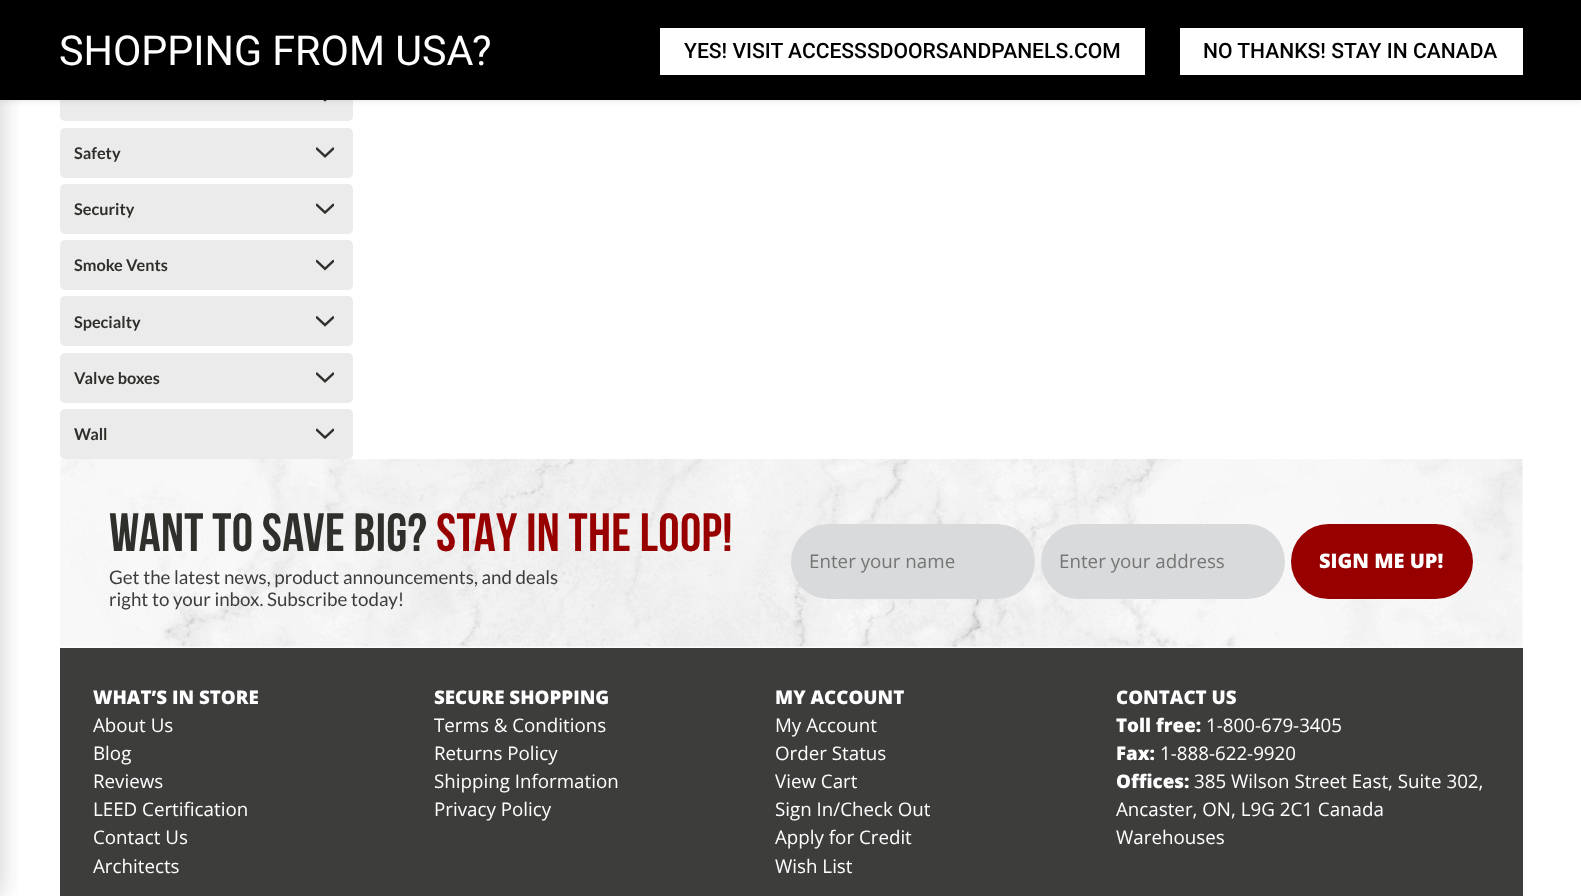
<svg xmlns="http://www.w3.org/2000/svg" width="1581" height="896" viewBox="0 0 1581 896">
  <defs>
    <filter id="blur1" x="-50%" y="-200%" width="200%" height="500%"><feGaussianBlur stdDeviation="3"/></filter>
    <filter id="blur2" x="-50%" y="-200%" width="200%" height="500%"><feGaussianBlur stdDeviation="12.5"/></filter>
  </defs>
  <rect width="100%" height="100%" fill="#ffffff"/>
  <rect x="60" y="71" width="293" height="50" rx="5" fill="#ebebeb"/>
  <image x="323" y="100" width="4" height="2" href="img1.png"/>
  <rect x="0" y="1" width="1581" height="100" fill="#000000" fill-opacity="0.1" filter="url(#blur1)"/>
  <rect x="0" y="0" width="1581" height="100" fill="#000000"/>
  <rect x="-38" y="0" width="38" height="896" fill="#000000" fill-opacity="0.2" filter="url(#blur2)"/>
  <text x="59" y="65" font-family="Roboto" font-size="41.25" fill="#ffffff">SHOPPING FROM USA?</text>
  <rect x="660" y="28" width="485" height="47" fill="#ffffff"/>
  <text x="684" y="58" font-family="Roboto" font-size="21.1" font-weight="500" fill="#000000">YES! VISIT ACCESSSDOORSANDPANELS.COM</text>
  <rect x="1180" y="28" width="343" height="47" fill="#ffffff"/>
  <text x="1203" y="58" font-family="Roboto" font-size="21.1" font-weight="500" fill="#000000">NO THANKS! STAY IN CANADA</text>
  <rect x="60" y="128" width="293" height="50" rx="5" fill="#ebebeb"/>
  <text x="74" y="159" font-family="Lato" font-size="16.25" font-weight="bold" fill="#2f2f2b">Safety</text>
  <image x="316" y="147" width="18" height="11" href="img2.png"/>
  <rect x="60" y="184" width="293" height="50" rx="5" fill="#ebebeb"/>
  <text x="74" y="215" font-family="Lato" font-size="16.25" font-weight="bold" fill="#2f2f2b">Security</text>
  <image x="316" y="203" width="18" height="11" href="img3.png"/>
  <rect x="60" y="240" width="293" height="50" rx="5" fill="#ebebeb"/>
  <text x="74" y="271" font-family="Lato" font-size="16.25" font-weight="bold" fill="#2f2f2b">Smoke Vents</text>
  <image x="316" y="259" width="18" height="12" href="img4.png"/>
  <rect x="60" y="296" width="293" height="50" rx="5" fill="#ebebeb"/>
  <text x="74" y="328" font-family="Lato" font-size="16.25" font-weight="bold" fill="#2f2f2b">Specialty</text>
  <image x="316" y="315" width="18" height="12" href="img5.png"/>
  <rect x="60" y="353" width="293" height="50" rx="5" fill="#ebebeb"/>
  <text x="74" y="384" font-family="Lato" font-size="16.25" font-weight="bold" fill="#2f2f2b">Valve boxes</text>
  <image x="316" y="372" width="18" height="11" href="img2.png"/>
  <rect x="60" y="409" width="293" height="50" rx="5" fill="#ebebeb"/>
  <text x="74" y="440" font-family="Lato" font-size="16.25" font-weight="bold" fill="#2f2f2b">Wall</text>
  <image x="316" y="428" width="18" height="11" href="img3.png"/>
  <image x="60" y="459" width="1463" height="189" href="img6.png"/>
  <text x="109" y="551" font-family="Bebas Neue" font-size="53.75" font-weight="bold" letter-spacing="0.3" fill="#2f2f2b">WANT TO SAVE BIG?</text>
  <text x="436" y="551" font-family="Bebas Neue" font-size="53.75" font-weight="bold" letter-spacing="0.3" fill="#980000">STAY IN THE LOOP!</text>
  <text x="109" y="584" font-family="Lato" font-size="18.75" fill="#3d3d3c">Get the latest news, product announcements, and deals</text>
  <text x="109" y="606" font-family="Lato" font-size="18.75" fill="#3d3d3c">right to your inbox. Subscribe today!</text>
  <rect x="791" y="524" width="244" height="75" rx="37.5" fill="#d9dadb"/>
  <text x="809" y="568" font-family="Open Sans" font-size="18.75" fill="#757575">Enter your name</text>
  <rect x="1041" y="524" width="244" height="75" rx="37.5" fill="#d9dadb"/>
  <text x="1059" y="568" font-family="Open Sans" font-size="18.75" fill="#757575">Enter your address</text>
  <rect x="1291" y="524" width="182" height="75" rx="37.5" fill="#980000"/>
  <text x="1319" y="568" font-family="Open Sans" font-size="20" font-weight="800" fill="#ffffff">SIGN ME UP!</text>
  <rect x="60" y="648" width="1463" height="248" fill="#3d3d3c"/>
  <text x="93" y="704" font-family="Open Sans" font-size="18.75" font-weight="800" fill="#ffffff">WHAT’S IN STORE</text>
  <text x="93" y="732" font-family="Open Sans" font-size="18.75" fill="#ffffff">About Us</text>
  <text x="93" y="760" font-family="Open Sans" font-size="18.75" fill="#ffffff">Blog</text>
  <text x="93" y="788" font-family="Open Sans" font-size="18.75" fill="#ffffff">Reviews</text>
  <text x="93" y="816" font-family="Open Sans" font-size="18.75" fill="#ffffff">LEED Certification</text>
  <text x="93" y="844" font-family="Open Sans" font-size="18.75" fill="#ffffff">Contact Us</text>
  <text x="93" y="873" font-family="Open Sans" font-size="18.75" fill="#ffffff">Architects</text>
  <text x="434" y="704" font-family="Open Sans" font-size="18.75" font-weight="800" fill="#ffffff">SECURE SHOPPING</text>
  <text x="434" y="732" font-family="Open Sans" font-size="18.75" fill="#ffffff">Terms &amp; Conditions</text>
  <text x="434" y="760" font-family="Open Sans" font-size="18.75" fill="#ffffff">Returns Policy</text>
  <text x="434" y="788" font-family="Open Sans" font-size="18.75" fill="#ffffff">Shipping Information</text>
  <text x="434" y="816" font-family="Open Sans" font-size="18.75" fill="#ffffff">Privacy Policy</text>
  <text x="775" y="704" font-family="Open Sans" font-size="18.75" font-weight="800" fill="#ffffff">MY ACCOUNT</text>
  <text x="775" y="732" font-family="Open Sans" font-size="18.75" fill="#ffffff">My Account</text>
  <text x="775" y="760" font-family="Open Sans" font-size="18.75" fill="#ffffff">Order Status</text>
  <text x="775" y="788" font-family="Open Sans" font-size="18.75" fill="#ffffff">View Cart</text>
  <text x="775" y="816" font-family="Open Sans" font-size="18.75" fill="#ffffff">Sign In/Check Out</text>
  <text x="775" y="844" font-family="Open Sans" font-size="18.75" fill="#ffffff">Apply for Credit</text>
  <text x="775" y="873" font-family="Open Sans" font-size="18.75" fill="#ffffff">Wish List</text>
  <text x="1116" y="704" font-family="Open Sans" font-size="18.75" font-weight="800" fill="#ffffff">CONTACT US</text>
  <text x="1116" y="732" font-family="Open Sans" font-size="18.75" font-weight="800" fill="#ffffff">Toll free:</text>
  <text x="1206" y="732" font-family="Open Sans" font-size="18.75" fill="#ffffff">1-800-679-3405</text>
  <text x="1116" y="760" font-family="Open Sans" font-size="18.75" font-weight="800" fill="#ffffff">Fax:</text>
  <text x="1160" y="760" font-family="Open Sans" font-size="18.75" fill="#ffffff">1-888-622-9920</text>
  <text x="1116" y="788" font-family="Open Sans" font-size="18.75" font-weight="800" fill="#ffffff">Offices:</text>
  <text x="1194" y="788" font-family="Open Sans" font-size="18.75" fill="#ffffff">385 Wilson Street East, Suite 302,</text>
  <text x="1116" y="816" font-family="Open Sans" font-size="18.75" fill="#ffffff">Ancaster, ON, L9G 2C1 Canada</text>
  <text x="1116" y="844" font-family="Open Sans" font-size="18.75" fill="#ffffff">Warehouses</text>
</svg>
